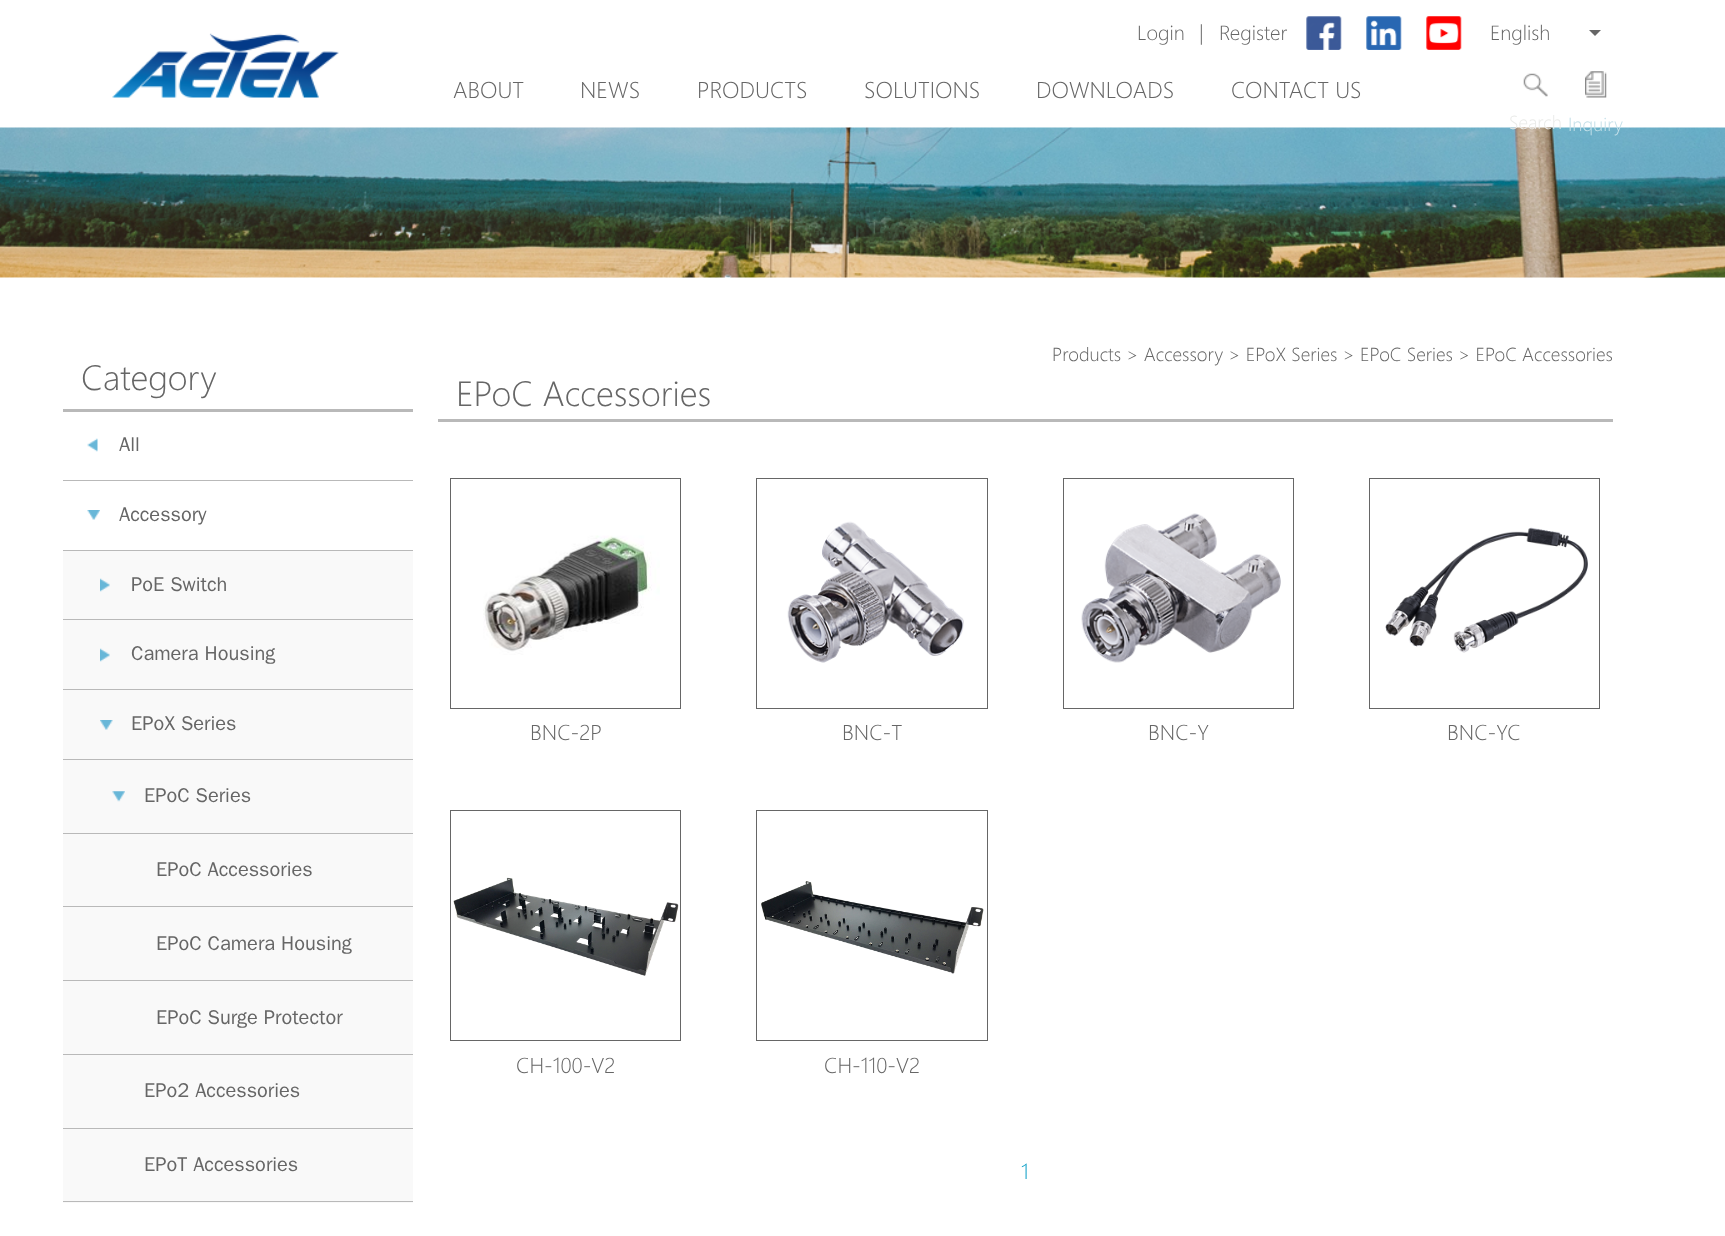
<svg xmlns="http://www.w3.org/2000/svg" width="1725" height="1236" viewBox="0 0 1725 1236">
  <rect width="100%" height="100%" fill="#ffffff"/>
  <image x="112" y="33" width="227" height="65" href="img1.png"/>
  <text x="1137" y="40" font-family="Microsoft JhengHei" font-size="19" font-weight="300" fill="#666666">Login</text>
  <text x="1199" y="40" font-family="Microsoft JhengHei" font-size="19" font-weight="300" fill="#666666">|</text>
  <text x="1219" y="40" font-family="Microsoft JhengHei" font-size="19" font-weight="300" fill="#666666">Register</text>
  <image x="1306" y="16" width="36" height="34" href="img2.png"/>
  <image x="1366" y="16" width="36" height="34" href="img3.png"/>
  <image x="1426" y="16" width="36" height="34" href="img4.png"/>
  <text x="1490" y="40" font-family="Microsoft JhengHei" font-size="19" font-weight="300" fill="#666666">English</text>
  <path d="M1589 30H1601L1595 36Z" fill="#666666"/>
  <text x="453" y="98" font-family="Microsoft JhengHei" font-size="21.25" font-weight="300" fill="#666666">ABOUT</text>
  <text x="580" y="98" font-family="Microsoft JhengHei" font-size="21.25" font-weight="300" fill="#666666">NEWS</text>
  <text x="697" y="98" font-family="Microsoft JhengHei" font-size="21.25" font-weight="300" fill="#666666">PRODUCTS</text>
  <text x="864" y="98" font-family="Microsoft JhengHei" font-size="21.25" font-weight="300" fill="#666666">SOLUTIONS</text>
  <text x="1036" y="98" font-family="Microsoft JhengHei" font-size="21.25" font-weight="300" fill="#666666">DOWNLOADS</text>
  <text x="1231" y="98" font-family="Microsoft JhengHei" font-size="21.25" font-weight="300" fill="#666666">CONTACT US</text>
  <image x="1523" y="73" width="25" height="24" href="img5.png"/>
  <image x="0" y="127" width="1725" height="151" href="img7.png"/>
  <text x="1509" y="129" font-family="Microsoft JhengHei" font-size="17.5" font-weight="300" fill="#eaebe9">Search</text>
  <image x="1585" y="71" width="22" height="27" href="img6.png"/>
  <text x="1568" y="131" font-family="Microsoft JhengHei" font-size="17.5" font-weight="300" fill="#c5e0e9">Inquiry</text>
  <rect x="63" y="409" width="350" height="3" fill="#b9b9b9"/>
  <text x="81" y="390" font-family="Microsoft JhengHei" font-size="32.5" font-weight="300" fill="#666666">Category</text>
  <image x="87" y="438" width="11" height="14" href="img8.png"/>
  <rect x="63" y="480" width="350" height="1" fill="#b9b9b9"/>
  <text x="119" y="451" font-family="WenQuanYi Zen Hei" font-size="20" font-weight="500" fill="#666666">All</text>
  <image x="87" y="510" width="13" height="10" href="img9.png"/>
  <rect x="63" y="550" width="350" height="1" fill="#b9b9b9"/>
  <text x="119" y="521" font-family="WenQuanYi Zen Hei" font-size="20" font-weight="500" fill="#666666">Accessory</text>
  <rect x="63" y="551" width="350" height="652" fill="#f9f9f9"/>
  <image x="100" y="578" width="10" height="14" href="img10.png"/>
  <rect x="63" y="619" width="350" height="1" fill="#b9b9b9"/>
  <text x="131" y="591" font-family="WenQuanYi Zen Hei" font-size="20" font-weight="500" fill="#666666">PoE Switch</text>
  <image x="100" y="648" width="10" height="14" href="img10.png"/>
  <rect x="63" y="689" width="350" height="1" fill="#b9b9b9"/>
  <text x="131" y="660" font-family="WenQuanYi Zen Hei" font-size="20" font-weight="500" fill="#666666">Camera Housing</text>
  <image x="100" y="720" width="13" height="10" href="img11.png"/>
  <rect x="63" y="759" width="350" height="1" fill="#b9b9b9"/>
  <text x="131" y="730" font-family="WenQuanYi Zen Hei" font-size="20" font-weight="500" fill="#666666">EPoX Series</text>
  <image x="112" y="791" width="13" height="11" href="img12.png"/>
  <rect x="63" y="833" width="350" height="1" fill="#b9b9b9"/>
  <text x="144" y="802" font-family="WenQuanYi Zen Hei" font-size="20" font-weight="500" fill="#666666">EPoC Series</text>
  <rect x="63" y="906" width="350" height="1" fill="#b9b9b9"/>
  <text x="156" y="876" font-family="WenQuanYi Zen Hei" font-size="20" font-weight="500" fill="#666666">EPoC Accessories</text>
  <rect x="63" y="980" width="350" height="1" fill="#b9b9b9"/>
  <text x="156" y="950" font-family="WenQuanYi Zen Hei" font-size="20" font-weight="500" fill="#666666">EPoC Camera Housing</text>
  <rect x="63" y="1054" width="350" height="1" fill="#b9b9b9"/>
  <text x="156" y="1024" font-family="WenQuanYi Zen Hei" font-size="20" font-weight="500" fill="#666666">EPoC Surge Protector</text>
  <rect x="63" y="1128" width="350" height="1" fill="#b9b9b9"/>
  <text x="144" y="1097" font-family="WenQuanYi Zen Hei" font-size="20" font-weight="500" fill="#666666">EPo2 Accessories</text>
  <rect x="63" y="1201" width="350" height="1" fill="#b9b9b9"/>
  <text x="144" y="1171" font-family="WenQuanYi Zen Hei" font-size="20" font-weight="500" fill="#666666">EPoT Accessories</text>
  <text x="1052" y="361" font-family="Microsoft JhengHei" font-size="17.5" font-weight="300" fill="#666666">Products &gt; Accessory &gt; EPoX Series &gt; EPoC Series &gt; EPoC Accessories</text>
  <rect x="438" y="419" width="1175" height="3" fill="#b9b9b9"/>
  <text x="456" y="406" font-family="Microsoft JhengHei" font-size="32.5" font-weight="300" fill="#666666">EPoC Accessories</text>
  <rect x="450.5" y="478.5" width="230" height="230" fill="none" stroke="#666666"/>
  <image x="483" y="535" width="177" height="120" href="img13.png"/>
  <text x="530" y="740" font-family="Microsoft JhengHei" font-size="20" font-weight="300" fill="#666666">BNC-2P</text>
  <rect x="756.5" y="478.5" width="231" height="230" fill="none" stroke="#666666"/>
  <image x="787" y="521" width="177" height="142" href="img14.png"/>
  <text x="842" y="740" font-family="Microsoft JhengHei" font-size="20" font-weight="300" fill="#666666">BNC-T</text>
  <rect x="1063.5" y="478.5" width="230" height="230" fill="none" stroke="#666666"/>
  <image x="1081" y="513" width="200" height="150" href="img15.png"/>
  <text x="1148" y="740" font-family="Microsoft JhengHei" font-size="20" font-weight="300" fill="#666666">BNC-Y</text>
  <rect x="1369.5" y="478.5" width="230" height="230" fill="none" stroke="#666666"/>
  <image x="1385" y="527" width="203" height="126" href="img16.png"/>
  <text x="1447" y="740" font-family="Microsoft JhengHei" font-size="20" font-weight="300" fill="#666666">BNC-YC</text>
  <rect x="450.5" y="810.5" width="230" height="230" fill="none" stroke="#666666"/>
  <image x="453" y="877" width="226" height="99" href="img17.png"/>
  <text x="516" y="1073" font-family="Microsoft JhengHei" font-size="20" font-weight="300" fill="#666666">CH-100-V2</text>
  <rect x="756.5" y="810.5" width="231" height="230" fill="none" stroke="#666666"/>
  <image x="761" y="881" width="223" height="93" href="img18.png"/>
  <text x="824" y="1073" font-family="Microsoft JhengHei" font-size="20" font-weight="300" fill="#666666">CH-110-V2</text>
  <text x="1021" y="1179" font-family="Microsoft JhengHei" font-size="20" font-weight="300" fill="#0ea0c7">1</text>
</svg>
